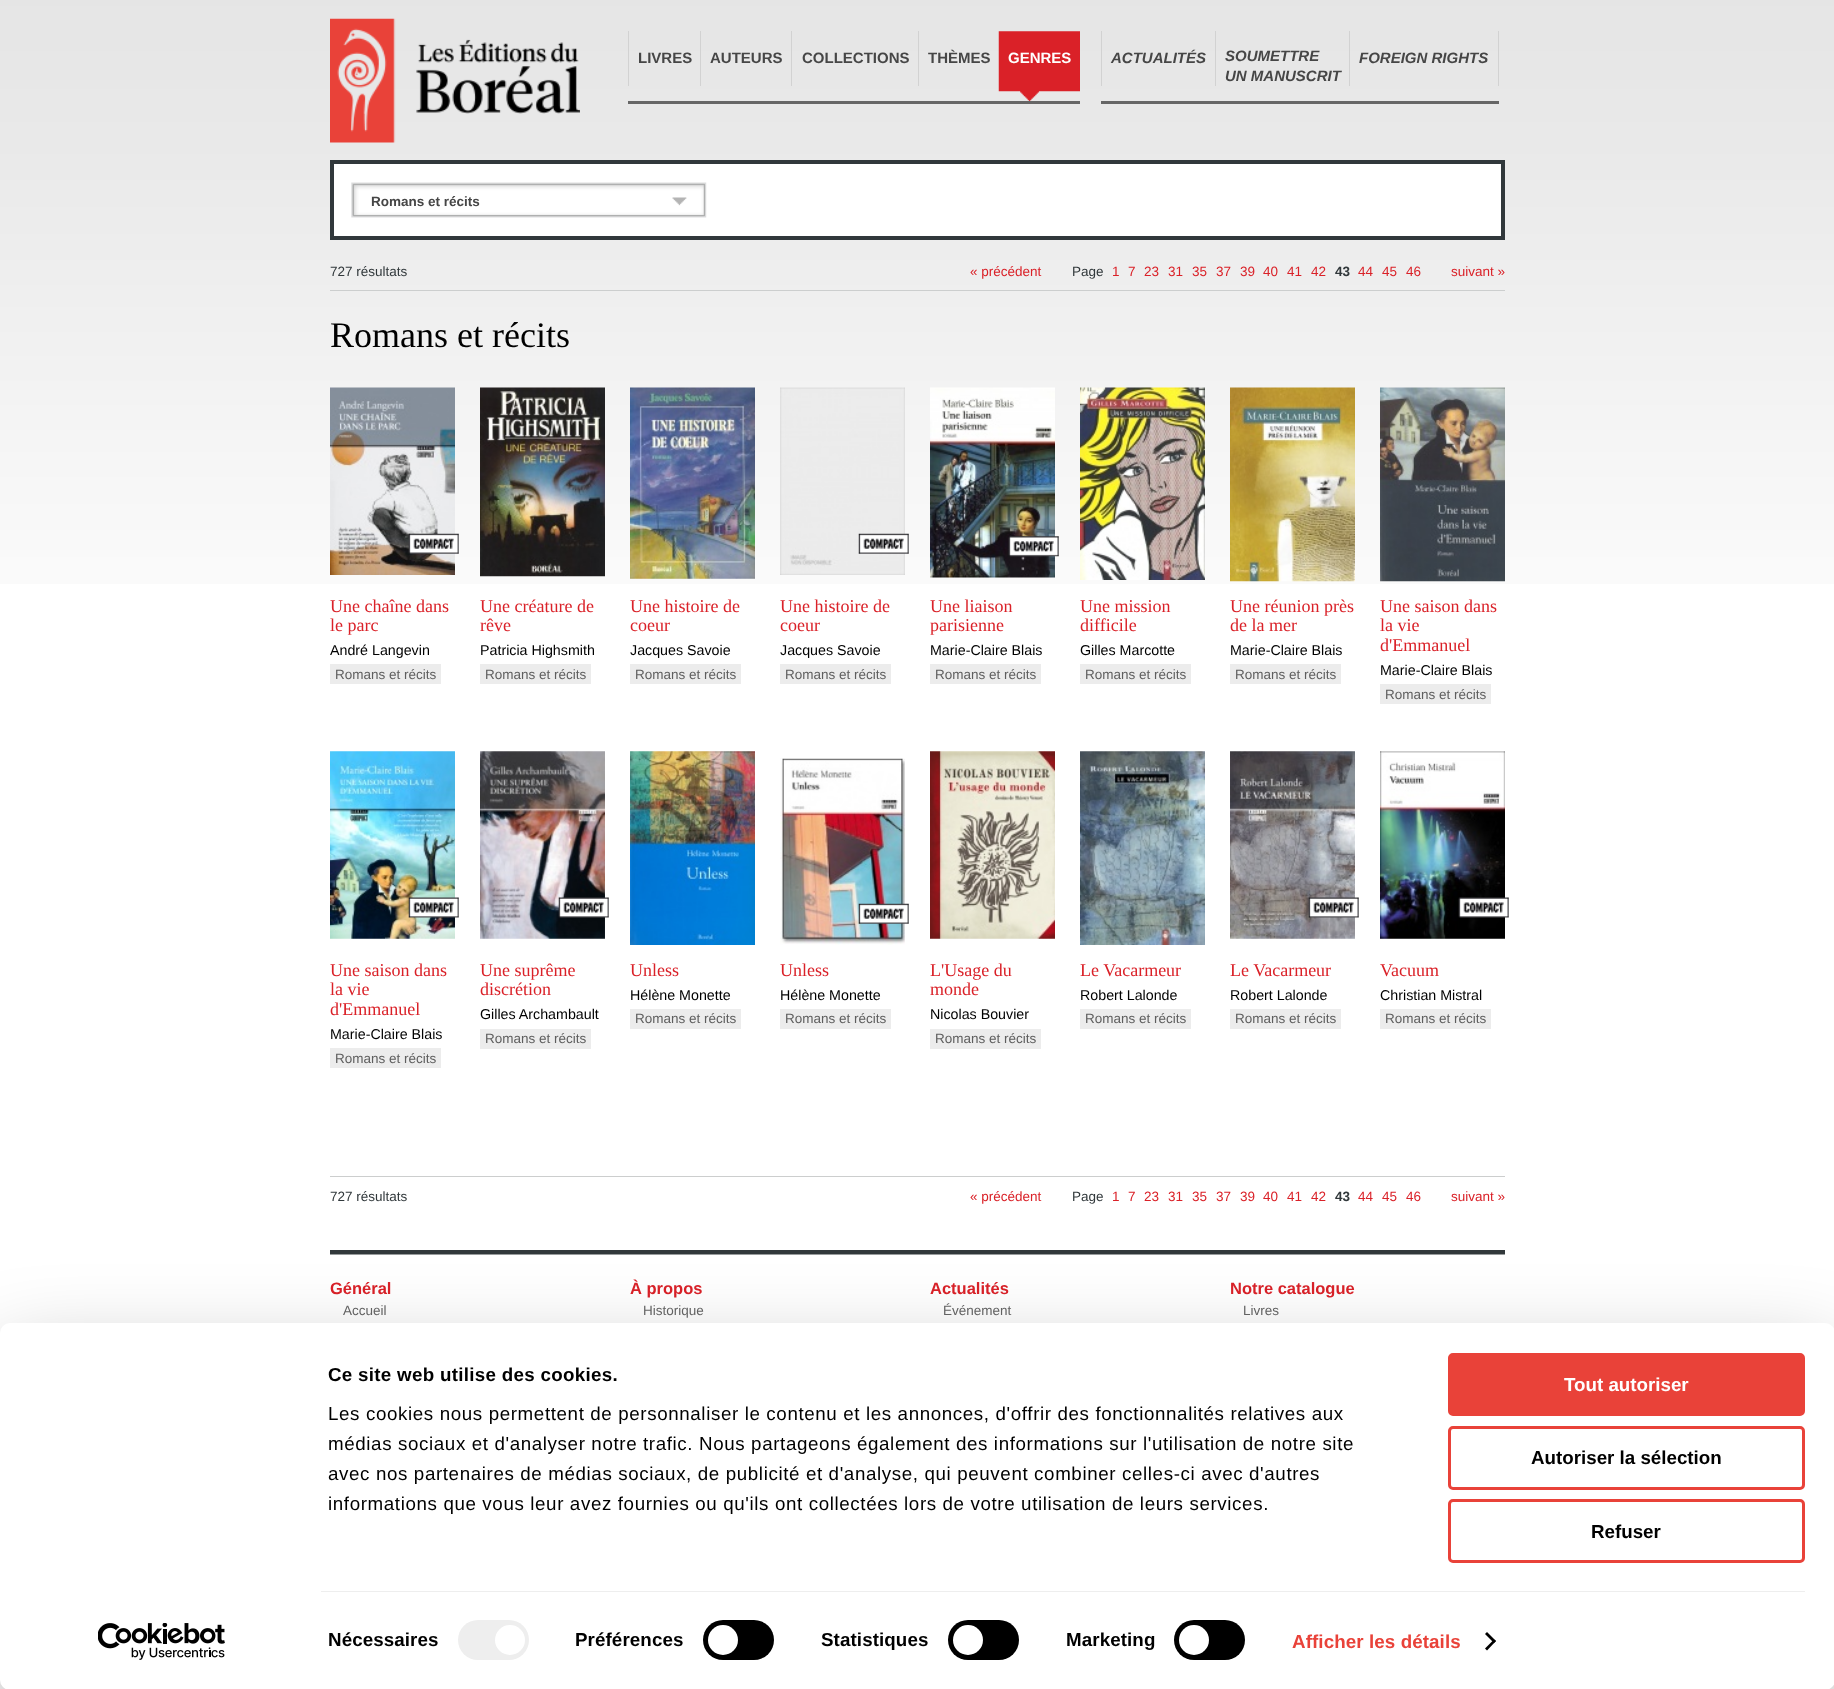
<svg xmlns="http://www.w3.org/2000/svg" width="1834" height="1689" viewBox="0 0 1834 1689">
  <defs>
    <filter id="blur1" x="-50%" y="-200%" width="200%" height="500%"><feGaussianBlur stdDeviation="44"/></filter>
  </defs>
  <rect width="100%" height="100%" fill="#ffffff"/>
  <image x="0" y="0" width="1834" height="584" href="img1.png"/>
  <image x="330" y="18" width="250" height="125" href="img2.png"/>
  <rect x="628" y="101" width="452" height="3" fill="#666666"/>
  <rect x="628" y="31" width="1" height="55" fill="#d2d2d2"/>
  <text x="638" y="63" font-family="Liberation Sans" font-size="15" font-weight="bold" fill="#464646">LIVRES</text>
  <rect x="700" y="31" width="1" height="55" fill="#d2d2d2"/>
  <text x="710" y="63" font-family="Liberation Sans" font-size="15" font-weight="bold" fill="#464646">AUTEURS</text>
  <rect x="791" y="31" width="1" height="55" fill="#d2d2d2"/>
  <text x="802" y="63" font-family="Liberation Sans" font-size="15" font-weight="bold" fill="#464646">COLLECTIONS</text>
  <rect x="918" y="31" width="1" height="55" fill="#d2d2d2"/>
  <text x="928" y="63" font-family="Liberation Sans" font-size="15" font-weight="bold" fill="#464646">THÈMES</text>
  <image x="998" y="31" width="82" height="70" href="img3.png"/>
  <text x="1008" y="63" font-family="Liberation Sans" font-size="15" font-weight="bold" fill="#ffffff">GENRES</text>
  <rect x="1101" y="101" width="398" height="3" fill="#666666"/>
  <rect x="1101" y="31" width="1" height="55" fill="#d2d2d2"/>
  <text x="1111" y="63" font-family="Liberation Sans" font-size="15" font-weight="bold" font-style="italic" fill="#464646">ACTUALITÉS</text>
  <rect x="1215" y="31" width="1" height="55" fill="#d2d2d2"/>
  <text x="1225" y="61" font-family="Liberation Sans" font-size="15" font-weight="bold" font-style="italic" fill="#464646">SOUMETTRE</text>
  <text x="1225" y="81" font-family="Liberation Sans" font-size="15" font-weight="bold" font-style="italic" fill="#464646">UN MANUSCRIT</text>
  <rect x="1498" y="31" width="1" height="55" fill="#d2d2d2"/>
  <rect x="1349" y="31" width="1" height="55" fill="#d2d2d2"/>
  <text x="1359" y="63" font-family="Liberation Sans" font-size="15" font-weight="bold" font-style="italic" fill="#464646">FOREIGN RIGHTS</text>
  <rect x="332" y="162" width="1171" height="76" fill="#ffffff" stroke="#31383b" stroke-width="4"/>
  <image x="351" y="182" width="356" height="36" href="img4.png"/>
  <rect x="353.5" y="184.5" width="351" height="31" fill="none" stroke="#afb0b0"/>
  <text x="371" y="206" font-family="Liberation Sans" font-size="13.5" font-weight="bold" fill="#464646">Romans et récits</text>
  <rect x="330" y="290" width="1175" height="1" fill="#cccece"/>
  <text x="330" y="276" font-family="Liberation Sans" font-size="13.5" fill="#31383b">727 résultats</text>
  <text x="970" y="276" font-family="Liberation Sans" font-size="13.5" fill="#da2128">« précédent</text>
  <text x="1072" y="276" font-family="Liberation Sans" font-size="13.5" fill="#31383b">Page</text>
  <text x="1112" y="276" font-family="Liberation Sans" font-size="13.5" fill="#da2128">1</text>
  <text x="1128" y="276" font-family="Liberation Sans" font-size="13.5" fill="#da2128">7</text>
  <text x="1144" y="276" font-family="Liberation Sans" font-size="13.5" fill="#da2128">23</text>
  <text x="1168" y="276" font-family="Liberation Sans" font-size="13.5" fill="#da2128">31</text>
  <text x="1192" y="276" font-family="Liberation Sans" font-size="13.5" fill="#da2128">35</text>
  <text x="1216" y="276" font-family="Liberation Sans" font-size="13.5" fill="#da2128">37</text>
  <text x="1240" y="276" font-family="Liberation Sans" font-size="13.5" fill="#da2128">39</text>
  <text x="1263" y="276" font-family="Liberation Sans" font-size="13.5" fill="#da2128">40</text>
  <text x="1287" y="276" font-family="Liberation Sans" font-size="13.5" fill="#da2128">41</text>
  <text x="1311" y="276" font-family="Liberation Sans" font-size="13.5" fill="#da2128">42</text>
  <text x="1335" y="276" font-family="Liberation Sans" font-size="13.5" font-weight="bold" fill="#31383b">43</text>
  <text x="1358" y="276" font-family="Liberation Sans" font-size="13.5" fill="#da2128">44</text>
  <text x="1382" y="276" font-family="Liberation Sans" font-size="13.5" fill="#da2128">45</text>
  <text x="1406" y="276" font-family="Liberation Sans" font-size="13.5" fill="#da2128">46</text>
  <text x="1451" y="276" font-family="Liberation Sans" font-size="13.5" fill="#da2128">suivant »</text>
  <text x="330" y="347" font-family="Liberation Serif" font-size="36" fill="#000000">Romans et récits</text>
  <image x="330" y="387" width="125" height="188" href="img5.png"/>
  <image x="408" y="533" width="51" height="21" href="img6.png"/>
  <text x="330" y="612" font-family="Liberation Serif" font-size="18" fill="#da2128">Une chaîne dans</text>
  <text x="330" y="631" font-family="Liberation Serif" font-size="18" fill="#da2128">le parc</text>
  <text x="330" y="655" font-family="Liberation Sans" font-size="14.25" fill="#000000">André Langevin</text>
  <rect x="330" y="664" width="111" height="20" fill="#ececec"/>
  <text x="335" y="679" font-family="Liberation Sans" font-size="13.5" fill="#5e5e5e">Romans et récits</text>
  <image x="480" y="387" width="125" height="190" href="img7.png"/>
  <text x="480" y="612" font-family="Liberation Serif" font-size="18" fill="#da2128">Une créature de</text>
  <text x="480" y="631" font-family="Liberation Serif" font-size="18" fill="#da2128">rêve</text>
  <text x="480" y="655" font-family="Liberation Sans" font-size="14.25" fill="#000000">Patricia Highsmith</text>
  <rect x="480" y="664" width="111" height="20" fill="#ececec"/>
  <text x="485" y="679" font-family="Liberation Sans" font-size="13.5" fill="#5e5e5e">Romans et récits</text>
  <image x="630" y="387" width="125" height="192" href="img8.png"/>
  <text x="630" y="612" font-family="Liberation Serif" font-size="18" fill="#da2128">Une histoire de</text>
  <text x="630" y="631" font-family="Liberation Serif" font-size="18" fill="#da2128">coeur</text>
  <text x="630" y="655" font-family="Liberation Sans" font-size="14.25" fill="#000000">Jacques Savoie</text>
  <rect x="630" y="664" width="111" height="20" fill="#ececec"/>
  <text x="635" y="679" font-family="Liberation Sans" font-size="13.5" fill="#5e5e5e">Romans et récits</text>
  <image x="780" y="387" width="125" height="188" href="img9.png"/>
  <image x="858" y="533" width="51" height="21" href="img10.png"/>
  <text x="780" y="612" font-family="Liberation Serif" font-size="18" fill="#da2128">Une histoire de</text>
  <text x="780" y="631" font-family="Liberation Serif" font-size="18" fill="#da2128">coeur</text>
  <text x="780" y="655" font-family="Liberation Sans" font-size="14.25" fill="#000000">Jacques Savoie</text>
  <rect x="780" y="664" width="111" height="20" fill="#ececec"/>
  <text x="785" y="679" font-family="Liberation Sans" font-size="13.5" fill="#5e5e5e">Romans et récits</text>
  <image x="930" y="387" width="125" height="191" href="img11.png"/>
  <image x="1008" y="536" width="51" height="21" href="img12.png"/>
  <text x="930" y="612" font-family="Liberation Serif" font-size="18" fill="#da2128">Une liaison</text>
  <text x="930" y="631" font-family="Liberation Serif" font-size="18" fill="#da2128">parisienne</text>
  <text x="930" y="655" font-family="Liberation Sans" font-size="14.25" fill="#000000">Marie-Claire Blais</text>
  <rect x="930" y="664" width="111" height="20" fill="#ececec"/>
  <text x="935" y="679" font-family="Liberation Sans" font-size="13.5" fill="#5e5e5e">Romans et récits</text>
  <image x="1080" y="387" width="125" height="193" href="img13.png"/>
  <text x="1080" y="612" font-family="Liberation Serif" font-size="18" fill="#da2128">Une mission</text>
  <text x="1080" y="631" font-family="Liberation Serif" font-size="18" fill="#da2128">difficile</text>
  <text x="1080" y="655" font-family="Liberation Sans" font-size="14.25" fill="#000000">Gilles Marcotte</text>
  <rect x="1080" y="664" width="111" height="20" fill="#ececec"/>
  <text x="1085" y="679" font-family="Liberation Sans" font-size="13.5" fill="#5e5e5e">Romans et récits</text>
  <image x="1230" y="387" width="125" height="195" href="img14.png"/>
  <text x="1230" y="612" font-family="Liberation Serif" font-size="18" fill="#da2128">Une réunion près</text>
  <text x="1230" y="631" font-family="Liberation Serif" font-size="18" fill="#da2128">de la mer</text>
  <text x="1230" y="655" font-family="Liberation Sans" font-size="14.25" fill="#000000">Marie-Claire Blais</text>
  <rect x="1230" y="664" width="111" height="20" fill="#ececec"/>
  <text x="1235" y="679" font-family="Liberation Sans" font-size="13.5" fill="#5e5e5e">Romans et récits</text>
  <image x="1380" y="387" width="125" height="195" href="img15.png"/>
  <text x="1380" y="612" font-family="Liberation Serif" font-size="18" fill="#da2128">Une saison dans</text>
  <text x="1380" y="631" font-family="Liberation Serif" font-size="18" fill="#da2128">la vie</text>
  <text x="1380" y="651" font-family="Liberation Serif" font-size="18" fill="#da2128">d'Emmanuel</text>
  <text x="1380" y="675" font-family="Liberation Sans" font-size="14.25" fill="#000000">Marie-Claire Blais</text>
  <rect x="1380" y="684" width="111" height="20" fill="#ececec"/>
  <text x="1385" y="699" font-family="Liberation Sans" font-size="13.5" fill="#5e5e5e">Romans et récits</text>
  <image x="330" y="751" width="125" height="188" href="img16.png"/>
  <image x="408" y="897" width="51" height="21" href="img17.png"/>
  <text x="330" y="976" font-family="Liberation Serif" font-size="18" fill="#da2128">Une saison dans</text>
  <text x="330" y="995" font-family="Liberation Serif" font-size="18" fill="#da2128">la vie</text>
  <text x="330" y="1015" font-family="Liberation Serif" font-size="18" fill="#da2128">d'Emmanuel</text>
  <text x="330" y="1039" font-family="Liberation Sans" font-size="14.25" fill="#000000">Marie-Claire Blais</text>
  <rect x="330" y="1048" width="111" height="20" fill="#ececec"/>
  <text x="335" y="1063" font-family="Liberation Sans" font-size="13.5" fill="#5e5e5e">Romans et récits</text>
  <image x="480" y="751" width="125" height="188" href="img18.png"/>
  <image x="558" y="897" width="51" height="21" href="img19.png"/>
  <text x="480" y="976" font-family="Liberation Serif" font-size="18" fill="#da2128">Une suprême</text>
  <text x="480" y="995" font-family="Liberation Serif" font-size="18" fill="#da2128">discrétion</text>
  <text x="480" y="1019" font-family="Liberation Sans" font-size="14.25" fill="#000000">Gilles Archambault</text>
  <rect x="480" y="1029" width="111" height="20" fill="#ececec"/>
  <text x="485" y="1043" font-family="Liberation Sans" font-size="13.5" fill="#5e5e5e">Romans et récits</text>
  <image x="630" y="751" width="125" height="194" href="img20.png"/>
  <text x="630" y="976" font-family="Liberation Serif" font-size="18" fill="#da2128">Unless</text>
  <text x="630" y="1000" font-family="Liberation Sans" font-size="14.25" fill="#000000">Hélène Monette</text>
  <rect x="630" y="1009" width="111" height="20" fill="#ececec"/>
  <text x="635" y="1023" font-family="Liberation Sans" font-size="13.5" fill="#5e5e5e">Romans et récits</text>
  <image x="780" y="758" width="125" height="187" href="img21.png"/>
  <image x="858" y="903" width="51" height="21" href="img22.png"/>
  <text x="780" y="976" font-family="Liberation Serif" font-size="18" fill="#da2128">Unless</text>
  <text x="780" y="1000" font-family="Liberation Sans" font-size="14.25" fill="#000000">Hélène Monette</text>
  <rect x="780" y="1009" width="111" height="20" fill="#ececec"/>
  <text x="785" y="1023" font-family="Liberation Sans" font-size="13.5" fill="#5e5e5e">Romans et récits</text>
  <image x="930" y="751" width="125" height="188" href="img23.png"/>
  <text x="930" y="976" font-family="Liberation Serif" font-size="18" fill="#da2128">L'Usage du</text>
  <text x="930" y="995" font-family="Liberation Serif" font-size="18" fill="#da2128">monde</text>
  <text x="930" y="1019" font-family="Liberation Sans" font-size="14.25" fill="#000000">Nicolas Bouvier</text>
  <rect x="930" y="1029" width="111" height="20" fill="#ececec"/>
  <text x="935" y="1043" font-family="Liberation Sans" font-size="13.5" fill="#5e5e5e">Romans et récits</text>
  <image x="1080" y="751" width="125" height="194" href="img24.png"/>
  <text x="1080" y="976" font-family="Liberation Serif" font-size="18" fill="#da2128">Le Vacarmeur</text>
  <text x="1080" y="1000" font-family="Liberation Sans" font-size="14.25" fill="#000000">Robert Lalonde</text>
  <rect x="1080" y="1009" width="111" height="20" fill="#ececec"/>
  <text x="1085" y="1023" font-family="Liberation Sans" font-size="13.5" fill="#5e5e5e">Romans et récits</text>
  <image x="1230" y="751" width="125" height="188" href="img25.png"/>
  <image x="1308" y="897" width="51" height="21" href="img26.png"/>
  <text x="1230" y="976" font-family="Liberation Serif" font-size="18" fill="#da2128">Le Vacarmeur</text>
  <text x="1230" y="1000" font-family="Liberation Sans" font-size="14.25" fill="#000000">Robert Lalonde</text>
  <rect x="1230" y="1009" width="111" height="20" fill="#ececec"/>
  <text x="1235" y="1023" font-family="Liberation Sans" font-size="13.5" fill="#5e5e5e">Romans et récits</text>
  <image x="1380" y="751" width="125" height="188" href="img27.png"/>
  <image x="1458" y="897" width="51" height="21" href="img28.png"/>
  <text x="1380" y="976" font-family="Liberation Serif" font-size="18" fill="#da2128">Vacuum</text>
  <text x="1380" y="1000" font-family="Liberation Sans" font-size="14.25" fill="#000000">Christian Mistral</text>
  <rect x="1380" y="1009" width="111" height="20" fill="#ececec"/>
  <text x="1385" y="1023" font-family="Liberation Sans" font-size="13.5" fill="#5e5e5e">Romans et récits</text>
  <rect x="330" y="1176" width="1175" height="1" fill="#cccece"/>
  <text x="330" y="1201" font-family="Liberation Sans" font-size="13.5" fill="#31383b">727 résultats</text>
  <text x="970" y="1201" font-family="Liberation Sans" font-size="13.5" fill="#da2128">« précédent</text>
  <text x="1072" y="1201" font-family="Liberation Sans" font-size="13.5" fill="#31383b">Page</text>
  <text x="1112" y="1201" font-family="Liberation Sans" font-size="13.5" fill="#da2128">1</text>
  <text x="1128" y="1201" font-family="Liberation Sans" font-size="13.5" fill="#da2128">7</text>
  <text x="1144" y="1201" font-family="Liberation Sans" font-size="13.5" fill="#da2128">23</text>
  <text x="1168" y="1201" font-family="Liberation Sans" font-size="13.5" fill="#da2128">31</text>
  <text x="1192" y="1201" font-family="Liberation Sans" font-size="13.5" fill="#da2128">35</text>
  <text x="1216" y="1201" font-family="Liberation Sans" font-size="13.5" fill="#da2128">37</text>
  <text x="1240" y="1201" font-family="Liberation Sans" font-size="13.5" fill="#da2128">39</text>
  <text x="1263" y="1201" font-family="Liberation Sans" font-size="13.5" fill="#da2128">40</text>
  <text x="1287" y="1201" font-family="Liberation Sans" font-size="13.5" fill="#da2128">41</text>
  <text x="1311" y="1201" font-family="Liberation Sans" font-size="13.5" fill="#da2128">42</text>
  <text x="1335" y="1201" font-family="Liberation Sans" font-size="13.5" font-weight="bold" fill="#31383b">43</text>
  <text x="1358" y="1201" font-family="Liberation Sans" font-size="13.5" fill="#da2128">44</text>
  <text x="1382" y="1201" font-family="Liberation Sans" font-size="13.5" fill="#da2128">45</text>
  <text x="1406" y="1201" font-family="Liberation Sans" font-size="13.5" fill="#da2128">46</text>
  <text x="1451" y="1201" font-family="Liberation Sans" font-size="13.5" fill="#da2128">suivant »</text>
  <rect x="330" y="1250" width="1175" height="4" fill="#31383b"/>
  <rect x="330" y="1254" width="1175" height="1" fill="#989c9d"/>
  <text x="330" y="1294" font-family="Liberation Sans" font-size="16.5" font-weight="bold" fill="#da2128">Général</text>
  <text x="343" y="1315" font-family="Liberation Sans" font-size="13.5" fill="#666666">Accueil</text>
  <text x="630" y="1294" font-family="Liberation Sans" font-size="16.5" font-weight="bold" fill="#da2128">À propos</text>
  <text x="643" y="1315" font-family="Liberation Sans" font-size="13.5" fill="#666666">Historique</text>
  <text x="930" y="1294" font-family="Liberation Sans" font-size="16.5" font-weight="bold" fill="#da2128">Actualités</text>
  <text x="943" y="1315" font-family="Liberation Sans" font-size="13.5" fill="#666666">Événement</text>
  <text x="1230" y="1294" font-family="Liberation Sans" font-size="16.5" font-weight="bold" fill="#da2128">Notre catalogue</text>
  <text x="1243" y="1315" font-family="Liberation Sans" font-size="13.5" fill="#666666">Livres</text>
  <rect x="0" y="1360" width="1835" height="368" rx="10" fill="#000000" fill-opacity="0.3" filter="url(#blur1)"/>
  <rect x="0" y="1323" width="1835" height="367" rx="10" fill="#ffffff"/>
  <text x="328" y="1381" font-family="Liberation Sans" font-size="18.75" font-weight="bold" letter-spacing="0.3" fill="#000000">Ce site web utilise des cookies.</text>
  <text x="328" y="1420" font-family="Liberation Sans" font-size="18.75" letter-spacing="0.62" fill="#000000">Les cookies nous permettent de personnaliser le contenu et les annonces, d'offrir des fonctionnalités relatives aux</text>
  <text x="328" y="1450" font-family="Liberation Sans" font-size="18.75" letter-spacing="0.62" fill="#000000">médias sociaux et d'analyser notre trafic. Nous partageons également des informations sur l'utilisation de notre site</text>
  <text x="328" y="1480" font-family="Liberation Sans" font-size="18.75" letter-spacing="0.62" fill="#000000">avec nos partenaires de médias sociaux, de publicité et d'analyse, qui peuvent combiner celles-ci avec d'autres</text>
  <text x="328" y="1510" font-family="Liberation Sans" font-size="18.75" letter-spacing="0.62" fill="#000000">informations que vous leur avez fournies ou qu'ils ont collectées lors de votre utilisation de leurs services.</text>
  <rect x="321" y="1591" width="1484" height="1" fill="#eeeeee"/>
  <text x="328" y="1646" font-family="Liberation Sans" font-size="18.75" font-weight="bold" letter-spacing="0.1" fill="#000000">Nécessaires</text>
  <rect x="458" y="1620" width="71" height="40" rx="20" fill="#eeeeee"/>
  <circle cx="510" cy="1640" r="15" fill="#ffffff"/>
  <text x="575" y="1646" font-family="Liberation Sans" font-size="18.75" font-weight="bold" letter-spacing="0.1" fill="#000000">Préférences</text>
  <rect x="703" y="1620" width="71" height="40" rx="20" fill="#000000"/>
  <circle cx="723" cy="1640" r="15" fill="#ffffff"/>
  <text x="821" y="1646" font-family="Liberation Sans" font-size="18.75" font-weight="bold" letter-spacing="0.1" fill="#000000">Statistiques</text>
  <rect x="948" y="1620" width="71" height="40" rx="20" fill="#000000"/>
  <circle cx="968" cy="1640" r="15" fill="#ffffff"/>
  <text x="1066" y="1646" font-family="Liberation Sans" font-size="18.75" font-weight="bold" letter-spacing="0.1" fill="#000000">Marketing</text>
  <rect x="1174" y="1620" width="71" height="40" rx="20" fill="#000000"/>
  <circle cx="1194" cy="1640" r="15" fill="#ffffff"/>
  <text x="1292" y="1648" font-family="Liberation Sans" font-size="18.75" font-weight="bold" letter-spacing="0.1" fill="#e94239">Afficher les détails</text>
  <path d="M1487 1632L1496 1641L1494 1643L1485 1634Z" fill="#000000"/>
  <path d="M1494 1639.5L1496 1641L1487 1650.5L1485 1648.5Z" fill="#000000"/>
  <rect x="1449.5" y="1354.5" width="354" height="60" rx="3.5" fill="#e94239" stroke="#e94239" stroke-width="3"/>
  <text x="1564" y="1391" font-family="Liberation Sans" font-size="18.75" font-weight="bold" fill="#ffffff">Tout autoriser</text>
  <rect x="1449.5" y="1427.5" width="354" height="61" rx="3.5" fill="none" stroke="#e94239" stroke-width="3"/>
  <text x="1531" y="1464" font-family="Liberation Sans" font-size="18.75" font-weight="bold" fill="#000000">Autoriser la sélection</text>
  <rect x="1449.5" y="1500.5" width="354" height="61" rx="3.5" fill="none" stroke="#e94239" stroke-width="3"/>
  <text x="1591" y="1538" font-family="Liberation Sans" font-size="18.75" font-weight="bold" fill="#000000">Refuser</text>
  <image x="98" y="1623" width="127" height="37" href="img29.png"/>
</svg>
